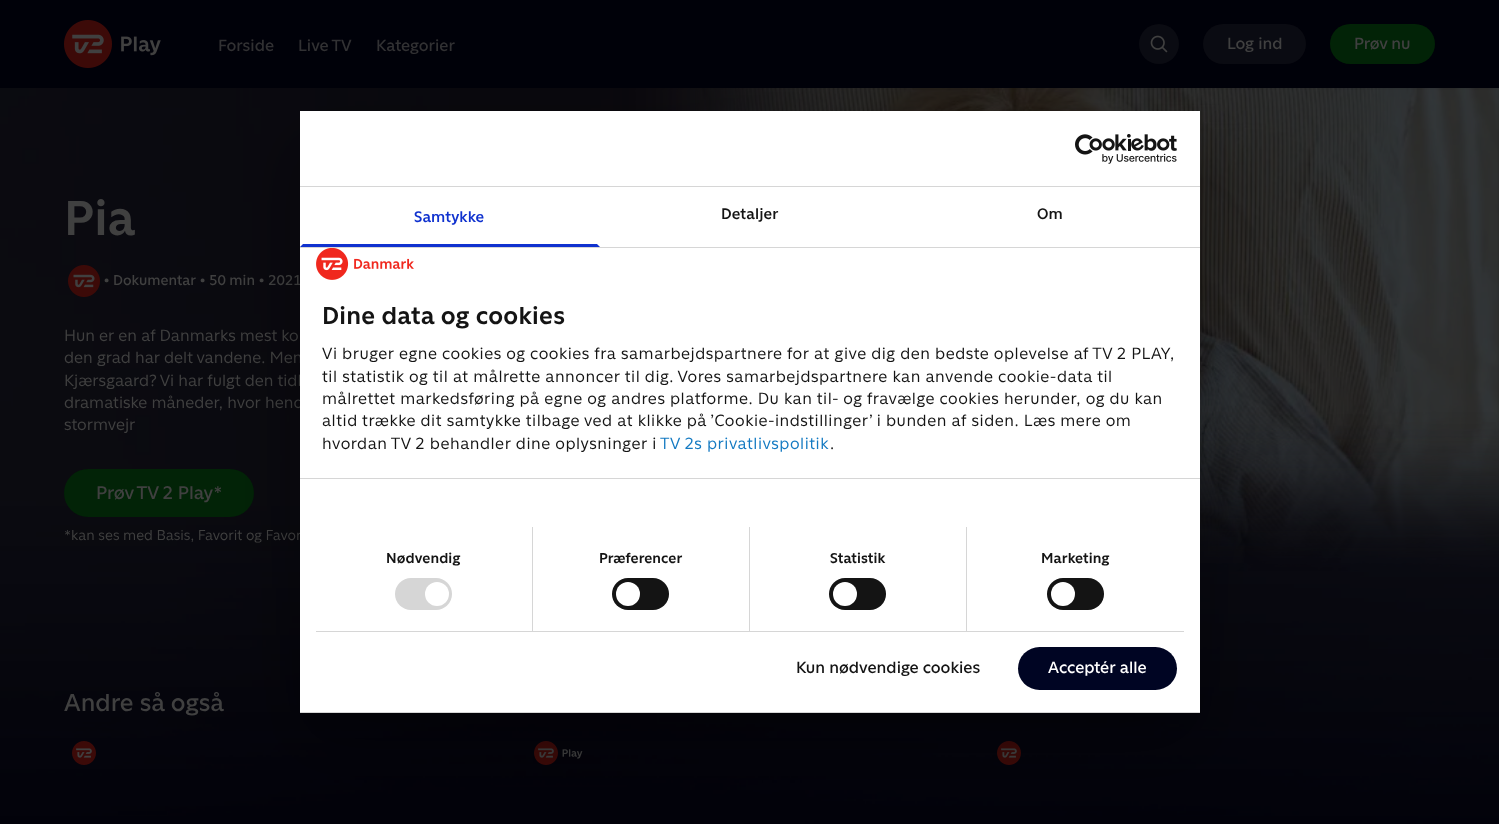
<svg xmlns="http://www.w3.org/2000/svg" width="1499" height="824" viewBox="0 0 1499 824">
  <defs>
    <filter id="blur1" x="-50%" y="-200%" width="200%" height="500%"><feGaussianBlur stdDeviation="34"/></filter>
  </defs>
  <rect width="100%" height="100%" fill="#000109"/>
  <image x="64" y="20" width="97" height="48" href="img1.png"/>
  <text x="218" y="51" font-family="'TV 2'" font-size="16" font-weight="500" fill="#313133">Forside</text>
  <text x="298" y="51" font-family="'TV 2'" font-size="16" font-weight="500" fill="#313133">Live TV</text>
  <text x="376" y="51" font-family="'TV 2'" font-size="16" font-weight="500" fill="#313133">Kategorier</text>
  <circle cx="1159" cy="44" r="20" fill="#0a0b12"/>
  <image x="1150" y="35" width="18" height="18" href="img2.png"/>
  <rect x="1203" y="24" width="103" height="40" rx="20" fill="#0a0b12"/>
  <text x="1227" y="49" font-family="'TV 2'" font-size="16" font-weight="500" fill="#404040">Log ind</text>
  <rect x="1330" y="24" width="105" height="40" rx="20" fill="#022307"/>
  <text x="1354" y="49" font-family="'TV 2'" font-size="16" font-weight="500" fill="#404040">Prøv nu</text>
  <image x="0" y="88" width="1499" height="736" href="img3.png"/>
  <image x="626" y="88" width="873" height="483" href="img4.png"/>
  <text x="64" y="235" font-family="'TV 2'" font-size="48" font-weight="bold" fill="#404040">Pia</text>
  <image x="68" y="265" width="32" height="32" href="img5.png"/>
  <text x="104" y="285" font-family="'TV 2'" font-size="14" font-weight="500" fill="#404040">•</text>
  <text x="113" y="285" font-family="'TV 2'" font-size="14" font-weight="500" fill="#404040">Dokumentar</text>
  <text x="200" y="285" font-family="'TV 2'" font-size="14" font-weight="500" fill="#404040">•</text>
  <text x="209" y="285" font-family="'TV 2'" font-size="14" font-weight="500" fill="#404040">50 min</text>
  <text x="259" y="285" font-family="'TV 2'" font-size="14" font-weight="500" fill="#404040">•</text>
  <text x="268" y="285" font-family="'TV 2'" font-size="14" font-weight="500" fill="#404040">2021</text>
  <text x="64" y="341" font-family="'TV 2'" font-size="16" fill="#404040">Hun er en af Danmarks mest ko</text>
  <text x="64" y="363" font-family="'TV 2'" font-size="16" fill="#404040">den grad har delt vandene. Men</text>
  <text x="64" y="386" font-family="'TV 2'" font-size="16" fill="#404040">Kjærsgaard? Vi har fulgt den tidl</text>
  <text x="64" y="408" font-family="'TV 2'" font-size="16" fill="#404040">dramatiske måneder, hvor hend</text>
  <text x="64" y="430" font-family="'TV 2'" font-size="16" fill="#404040">stormvejr</text>
  <rect x="64" y="469" width="190" height="48" rx="24" fill="#022307"/>
  <text x="96" y="499" font-family="'TV 2'" font-size="18" font-weight="500" fill="#404040">Prøv TV 2 Play*</text>
  <text x="64" y="540" font-family="'TV 2'" font-size="14" fill="#404040">*kan ses med Basis, Favorit og Favor</text>
  <text x="64" y="711" font-family="'TV 2'" font-size="24" font-weight="500" fill="#404040">Andre så også</text>
  <image x="72" y="741" width="24" height="24" href="img6.png"/>
  <image x="534" y="741" width="49" height="24" href="img7.png"/>
  <image x="997" y="741" width="24" height="24" href="img6.png"/>
  <rect x="300" y="143" width="900" height="602" fill="#000000" fill-opacity="0.3" filter="url(#blur1)"/>
  <rect x="300" y="111" width="900" height="601" fill="#ffffff"/>
  <rect x="300" y="186" width="900" height="1" fill="#d6d6d6"/>
  <image x="1075" y="134" width="102" height="30" href="img8.png"/>
  <rect x="300" y="247" width="900" height="1" fill="#d6d6d6"/>
  <path d="M600 247H300L303 244H597Z" fill="#1032cf"/>
  <text x="414" y="222" font-family="'TV 2'" font-size="15" font-weight="600" letter-spacing="0.1" fill="#1032cf">Samtykke</text>
  <text x="721" y="219" font-family="'TV 2'" font-size="15" font-weight="600" letter-spacing="0.1" fill="#141414">Detaljer</text>
  <text x="1037" y="219" font-family="'TV 2'" font-size="15" font-weight="600" letter-spacing="0.1" fill="#141414">Om</text>
  <image x="316" y="248" width="98" height="32" href="img9.png"/>
  <rect x="300" y="478" width="900" height="1" fill="#d6d6d6"/>
  <text x="322" y="324" font-family="'TV 2'" font-size="24" font-weight="bold" letter-spacing="0.25" fill="#141414">Dine data og cookies</text>
  <text x="322" y="359" font-family="'TV 2'" font-size="16" letter-spacing="0.5" fill="#141414">Vi bruger egne cookies og cookies fra samarbejdspartnere for at give dig den bedste oplevelse af TV 2 PLAY,</text>
  <text x="322" y="382" font-family="'TV 2'" font-size="16" letter-spacing="0.5" fill="#141414">til statistik og til at målrette annoncer til dig. Vores samarbejdspartnere kan anvende cookie-data til</text>
  <text x="322" y="404" font-family="'TV 2'" font-size="16" letter-spacing="0.5" fill="#141414">målrettet markedsføring på egne og andres platforme. Du kan til- og fravælge cookies herunder, og du kan</text>
  <text x="322" y="426" font-family="'TV 2'" font-size="16" letter-spacing="0.5" fill="#141414">altid trække dit samtykke tilbage ved at klikke på ’Cookie-indstillinger’ i bunden af siden. Læs mere om</text>
  <text x="322" y="449" font-family="'TV 2'" font-size="16" letter-spacing="0.5" fill="#141414">hvordan TV 2 behandler dine oplysninger i</text>
  <text x="660" y="449" font-family="'TV 2'" font-size="16" letter-spacing="0.5" fill="#147ac2">TV 2s privatlivspolitik</text>
  <text x="830" y="449" font-family="'TV 2'" font-size="16" letter-spacing="0.5" fill="#141414">.</text>
  <rect x="316" y="631" width="868" height="1" fill="#d6d6d6"/>
  <rect x="532" y="527" width="1" height="104" fill="#d6d6d6"/>
  <text x="386" y="563" font-family="'TV 2'" font-size="14" font-weight="bold" letter-spacing="0.1" fill="#141414">Nødvendig</text>
  <rect x="395" y="578" width="57" height="32" rx="16" fill="#d6d6d6"/>
  <circle cx="437" cy="594" r="12" fill="#ffffff"/>
  <rect x="749" y="527" width="1" height="104" fill="#d6d6d6"/>
  <text x="599" y="563" font-family="'TV 2'" font-size="14" font-weight="bold" letter-spacing="0.1" fill="#141414">Præferencer</text>
  <rect x="612" y="578" width="57" height="32" rx="16" fill="#141414"/>
  <circle cx="628" cy="594" r="12" fill="#ffffff"/>
  <rect x="966" y="527" width="1" height="104" fill="#d6d6d6"/>
  <text x="830" y="563" font-family="'TV 2'" font-size="14" font-weight="bold" letter-spacing="0.1" fill="#141414">Statistik</text>
  <rect x="829" y="578" width="57" height="32" rx="16" fill="#141414"/>
  <circle cx="845" cy="594" r="12" fill="#ffffff"/>
  <text x="1041" y="563" font-family="'TV 2'" font-size="14" font-weight="bold" letter-spacing="0.1" fill="#141414">Marketing</text>
  <rect x="1047" y="578" width="57" height="32" rx="16" fill="#141414"/>
  <circle cx="1063" cy="594" r="12" fill="#ffffff"/>
  <rect x="300" y="712" width="900" height="1" fill="#d6d6d6"/>
  <text x="796" y="673" font-family="'TV 2'" font-size="16" font-weight="500" fill="#141414">Kun nødvendige cookies</text>
  <rect x="1018" y="647" width="159" height="43" rx="21.5" fill="#000523"/>
  <text x="1048" y="673" font-family="'TV 2'" font-size="16" font-weight="500" fill="#ffffff">Acceptér alle</text>
</svg>
